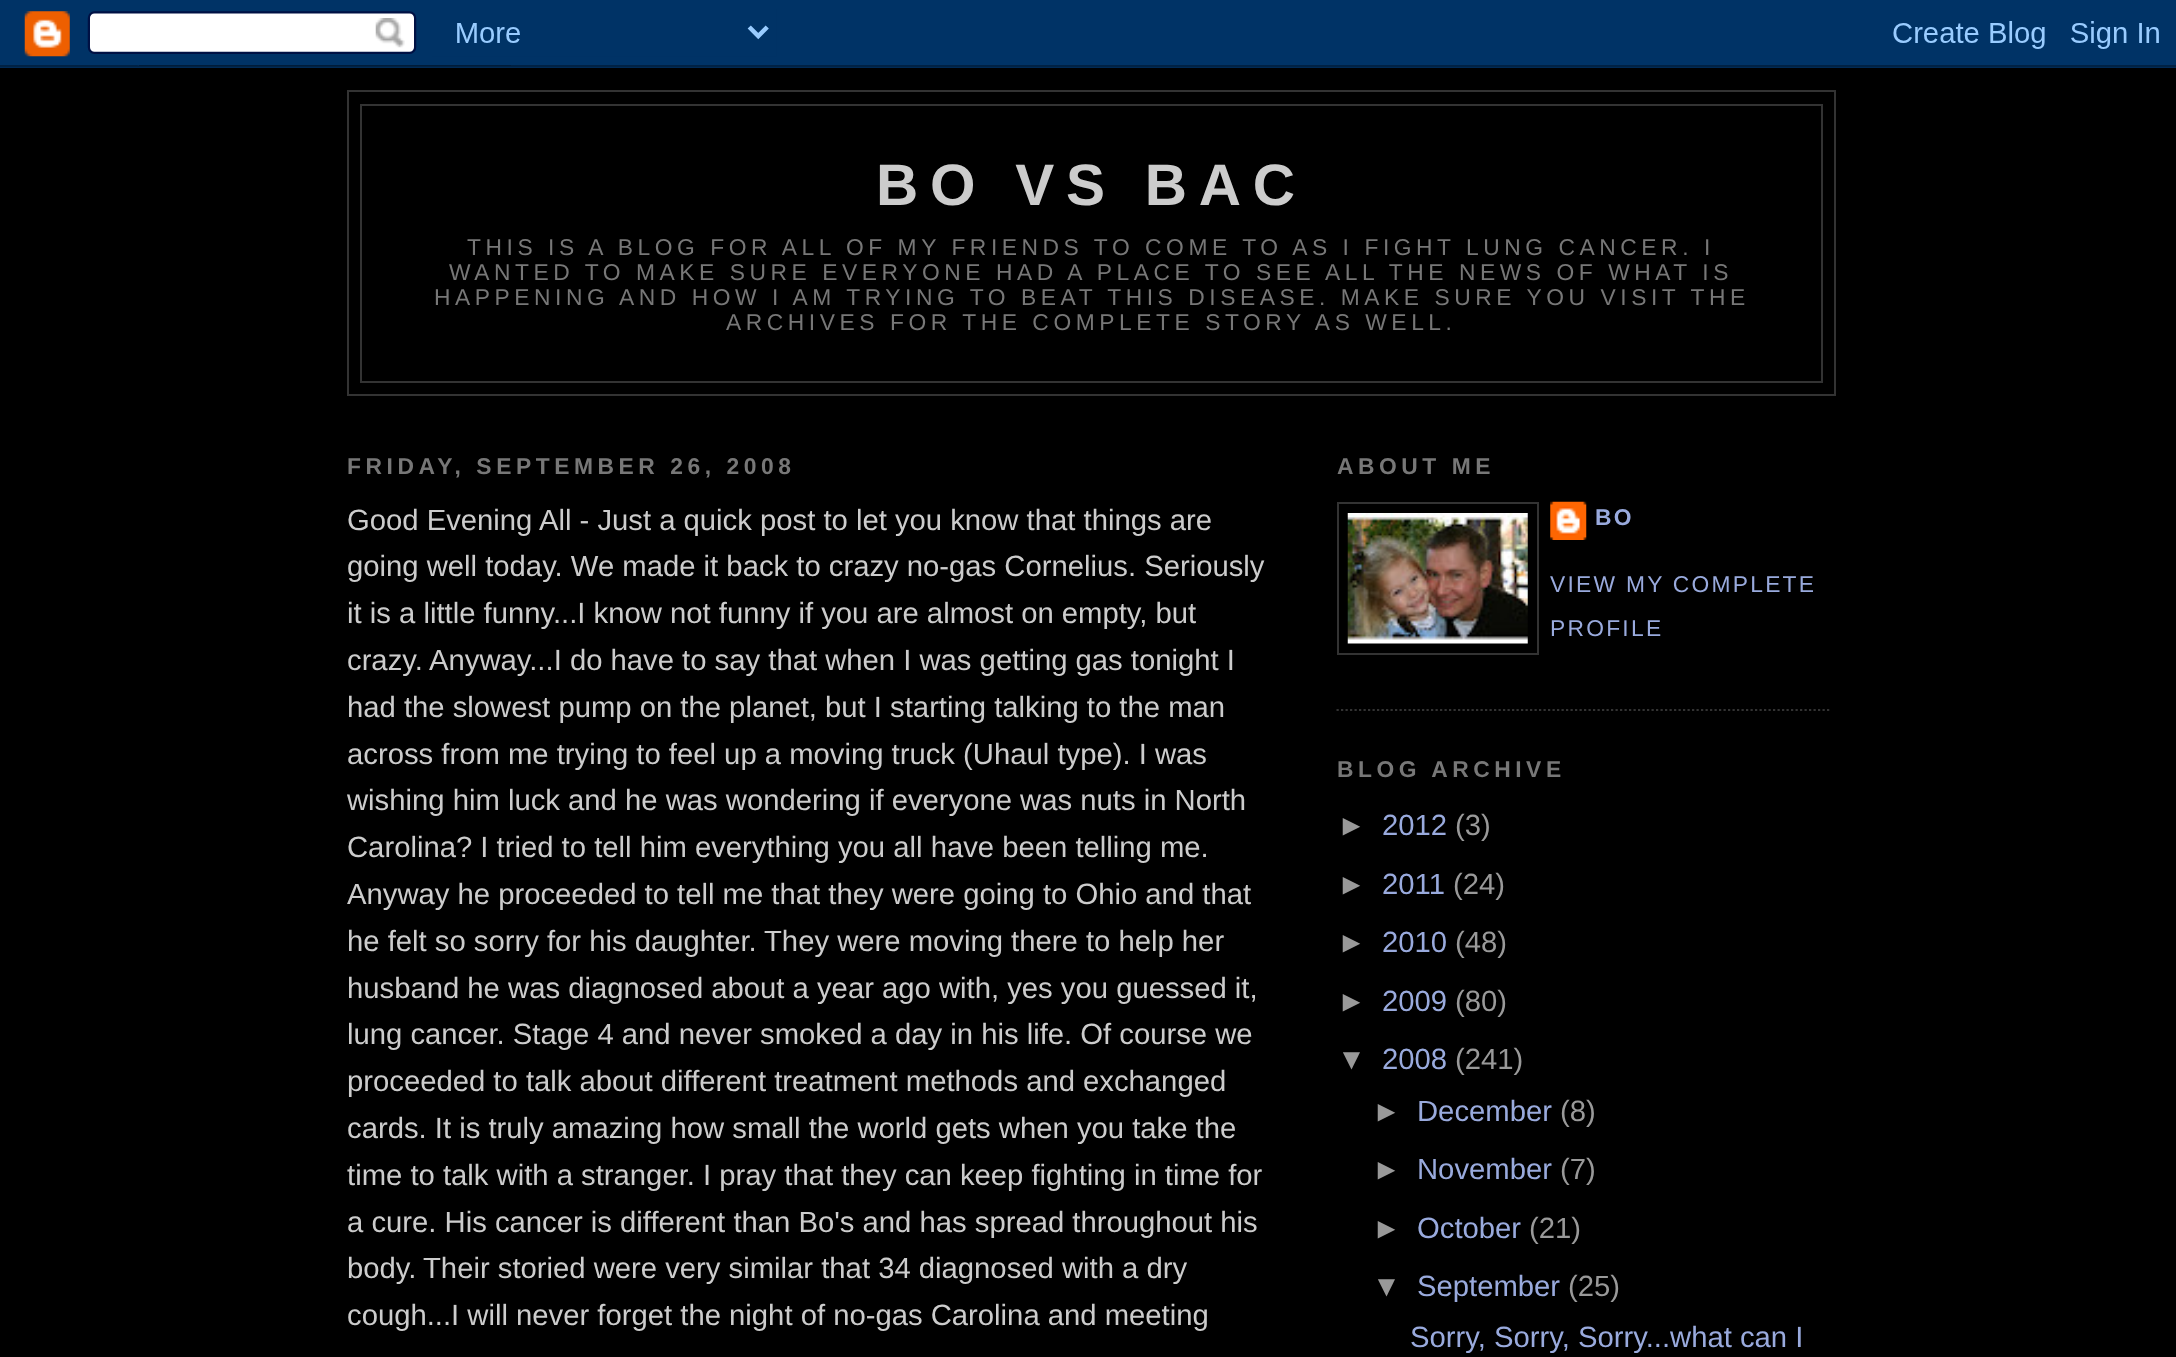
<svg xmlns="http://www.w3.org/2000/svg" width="2176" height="1357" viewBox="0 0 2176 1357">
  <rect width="100%" height="100%" fill="#000000"/>
  <image x="0" y="0" width="2176" height="68" href="img1.png"/>
  <rect x="348" y="91" width="1487" height="304" fill="none" stroke="#333333" stroke-width="2"/>
  <rect x="361" y="105" width="1461" height="277" fill="none" stroke="#333333" stroke-width="2"/>
  <text x="876" y="205" font-family="Liberation Sans" font-size="58.5" font-weight="bold" letter-spacing="11.75" fill="#cccccc">BO VS BAC</text>
  <text x="467" y="255" font-family="Liberation Sans" font-size="22.82" letter-spacing="4.55" fill="#777777">THIS IS A BLOG FOR ALL OF MY FRIENDS TO COME TO AS I FIGHT LUNG CANCER. I</text>
  <text x="449" y="280" font-family="Liberation Sans" font-size="22.82" letter-spacing="4.55" fill="#777777">WANTED TO MAKE SURE EVERYONE HAD A PLACE TO SEE ALL THE NEWS OF WHAT IS</text>
  <text x="434" y="305" font-family="Liberation Sans" font-size="22.82" letter-spacing="4.55" fill="#777777">HAPPENING AND HOW I AM TRYING TO BEAT THIS DISEASE. MAKE SURE YOU VISIT THE</text>
  <text x="726" y="330" font-family="Liberation Sans" font-size="22.82" letter-spacing="4.55" fill="#777777">ARCHIVES FOR THE COMPLETE STORY AS WELL.</text>
  <text x="347" y="474" font-family="Liberation Sans" font-size="22.82" font-weight="bold" letter-spacing="4.55" fill="#777777">FRIDAY, SEPTEMBER 26, 2008</text>
  <text x="347" y="530" font-family="Liberation Sans" font-size="29.25" fill="#cccccc">Good Evening All - Just a quick post to let you know that things are</text>
  <text x="347" y="576" font-family="Liberation Sans" font-size="29.25" fill="#cccccc">going well today. We made it back to crazy no-gas Cornelius. Seriously</text>
  <text x="347" y="623" font-family="Liberation Sans" font-size="29.25" fill="#cccccc">it is a little funny...I know not funny if you are almost on empty, but</text>
  <text x="347" y="670" font-family="Liberation Sans" font-size="29.25" fill="#cccccc">crazy.</text>
  <text x="429" y="670" font-family="Liberation Sans" font-size="29.25" fill="#cccccc">Anyway...I do have to say that when I was getting gas tonight I</text>
  <text x="347" y="717" font-family="Liberation Sans" font-size="29.25" fill="#cccccc">had the slowest pump on the planet, but I starting talking to the man</text>
  <text x="347" y="764" font-family="Liberation Sans" font-size="29.25" fill="#cccccc">across from me trying to feel up a moving truck (Uhaul type). I was</text>
  <text x="347" y="810" font-family="Liberation Sans" font-size="29.25" fill="#cccccc">wishing him luck and he was wondering if everyone was nuts in North</text>
  <text x="347" y="857" font-family="Liberation Sans" font-size="29.25" fill="#cccccc">Carolina? I tried to tell him everything you all have been telling me.</text>
  <text x="347" y="904" font-family="Liberation Sans" font-size="29.25" fill="#cccccc">Anyway he proceeded to tell me that they were going to Ohio and that</text>
  <text x="347" y="951" font-family="Liberation Sans" font-size="29.25" fill="#cccccc">he felt so sorry for his daughter.</text>
  <text x="764" y="951" font-family="Liberation Sans" font-size="29.25" fill="#cccccc">They were moving there to help her</text>
  <text x="347" y="998" font-family="Liberation Sans" font-size="29.25" fill="#cccccc">husband he was diagnosed about a year ago with, yes you guessed it,</text>
  <text x="347" y="1044" font-family="Liberation Sans" font-size="29.25" fill="#cccccc">lung cancer. Stage 4 and never smoked a day in his life. Of course we</text>
  <text x="347" y="1091" font-family="Liberation Sans" font-size="29.25" fill="#cccccc">proceeded to talk about different treatment methods and exchanged</text>
  <text x="347" y="1138" font-family="Liberation Sans" font-size="29.25" fill="#cccccc">cards. It is truly amazing how small the world gets when you take the</text>
  <text x="347" y="1185" font-family="Liberation Sans" font-size="29.25" fill="#cccccc">time to talk with a stranger. I pray that they can keep fighting in time for</text>
  <text x="347" y="1232" font-family="Liberation Sans" font-size="29.25" fill="#cccccc">a cure. His cancer is different than Bo's and has spread throughout his</text>
  <text x="347" y="1278" font-family="Liberation Sans" font-size="29.25" fill="#cccccc">body.</text>
  <text x="423" y="1278" font-family="Liberation Sans" font-size="29.25" fill="#cccccc">Their storied were very similar that 34 diagnosed with a dry</text>
  <text x="347" y="1325" font-family="Liberation Sans" font-size="29.25" fill="#cccccc">cough...I will never forget the night of no-gas Carolina and meeting</text>
  <path d="M1336.5 710H1831.5" fill="none" stroke="#333333" stroke-width="2.2" stroke-dasharray="2.25 2.25"/>
  <text x="1337" y="474" font-family="Liberation Sans" font-size="22.82" font-weight="bold" letter-spacing="4.55" fill="#777777">ABOUT ME</text>
  <rect x="1338" y="503" width="200" height="151" fill="none" stroke="#333333" stroke-width="2"/>
  <image x="1347" y="513" width="181" height="131" href="img2.png"/>
  <image x="1550" y="501" width="37" height="39" href="img3.png"/>
  <text x="1595" y="525" font-family="Liberation Sans" font-size="22.82" font-weight="bold" letter-spacing="2.25" fill="#99aadd">BO</text>
  <text x="1550" y="592" font-family="Liberation Sans" font-size="22.82" letter-spacing="2.25" fill="#99aadd">VIEW MY COMPLETE</text>
  <text x="1550" y="636" font-family="Liberation Sans" font-size="22.82" letter-spacing="2.25" fill="#99aadd">PROFILE</text>
  <text x="1337" y="777" font-family="Liberation Sans" font-size="22.82" font-weight="bold" letter-spacing="4.55" fill="#777777">BLOG ARCHIVE</text>
  <text x="1337" y="835" font-family="Liberation Sans" font-size="29.25" fill="#999999">►</text>
  <text x="1382" y="835" font-family="Liberation Sans" font-size="29.25" fill="#99aadd">2012</text>
  <text x="1455" y="835" font-family="Liberation Sans" font-size="29.25" fill="#999999">(3)</text>
  <text x="1337" y="894" font-family="Liberation Sans" font-size="29.25" fill="#999999">►</text>
  <text x="1382" y="894" font-family="Liberation Sans" font-size="29.25" fill="#99aadd">2011</text>
  <text x="1453" y="894" font-family="Liberation Sans" font-size="29.25" fill="#999999">(24)</text>
  <text x="1337" y="952" font-family="Liberation Sans" font-size="29.25" fill="#999999">►</text>
  <text x="1382" y="952" font-family="Liberation Sans" font-size="29.25" fill="#99aadd">2010</text>
  <text x="1455" y="952" font-family="Liberation Sans" font-size="29.25" fill="#999999">(48)</text>
  <text x="1337" y="1011" font-family="Liberation Sans" font-size="29.25" fill="#999999">►</text>
  <text x="1382" y="1011" font-family="Liberation Sans" font-size="29.25" fill="#99aadd">2009</text>
  <text x="1455" y="1011" font-family="Liberation Sans" font-size="29.25" fill="#999999">(80)</text>
  <text x="1337" y="1069" font-family="Liberation Sans" font-size="29.25" fill="#999999">▼</text>
  <text x="1382" y="1069" font-family="Liberation Sans" font-size="29.25" fill="#99aadd">2008</text>
  <text x="1455" y="1069" font-family="Liberation Sans" font-size="29.25" fill="#999999">(241)</text>
  <text x="1372" y="1121" font-family="Liberation Sans" font-size="29.25" fill="#999999">►</text>
  <text x="1417" y="1121" font-family="Liberation Sans" font-size="29.25" fill="#99aadd">December</text>
  <text x="1560" y="1121" font-family="Liberation Sans" font-size="29.25" fill="#999999">(8)</text>
  <text x="1372" y="1179" font-family="Liberation Sans" font-size="29.25" fill="#999999">►</text>
  <text x="1417" y="1179" font-family="Liberation Sans" font-size="29.25" fill="#99aadd">November</text>
  <text x="1560" y="1179" font-family="Liberation Sans" font-size="29.25" fill="#999999">(7)</text>
  <text x="1372" y="1238" font-family="Liberation Sans" font-size="29.25" fill="#999999">►</text>
  <text x="1417" y="1238" font-family="Liberation Sans" font-size="29.25" fill="#99aadd">October</text>
  <text x="1529" y="1238" font-family="Liberation Sans" font-size="29.25" fill="#999999">(21)</text>
  <text x="1372" y="1296" font-family="Liberation Sans" font-size="29.25" fill="#999999">▼</text>
  <text x="1417" y="1296" font-family="Liberation Sans" font-size="29.25" fill="#99aadd">September</text>
  <text x="1568" y="1296" font-family="Liberation Sans" font-size="29.25" fill="#999999">(25)</text>
  <text x="1410" y="1347" font-family="Liberation Sans" font-size="29.25" fill="#99aadd">Sorry, Sorry, Sorry...what can I</text>
</svg>
